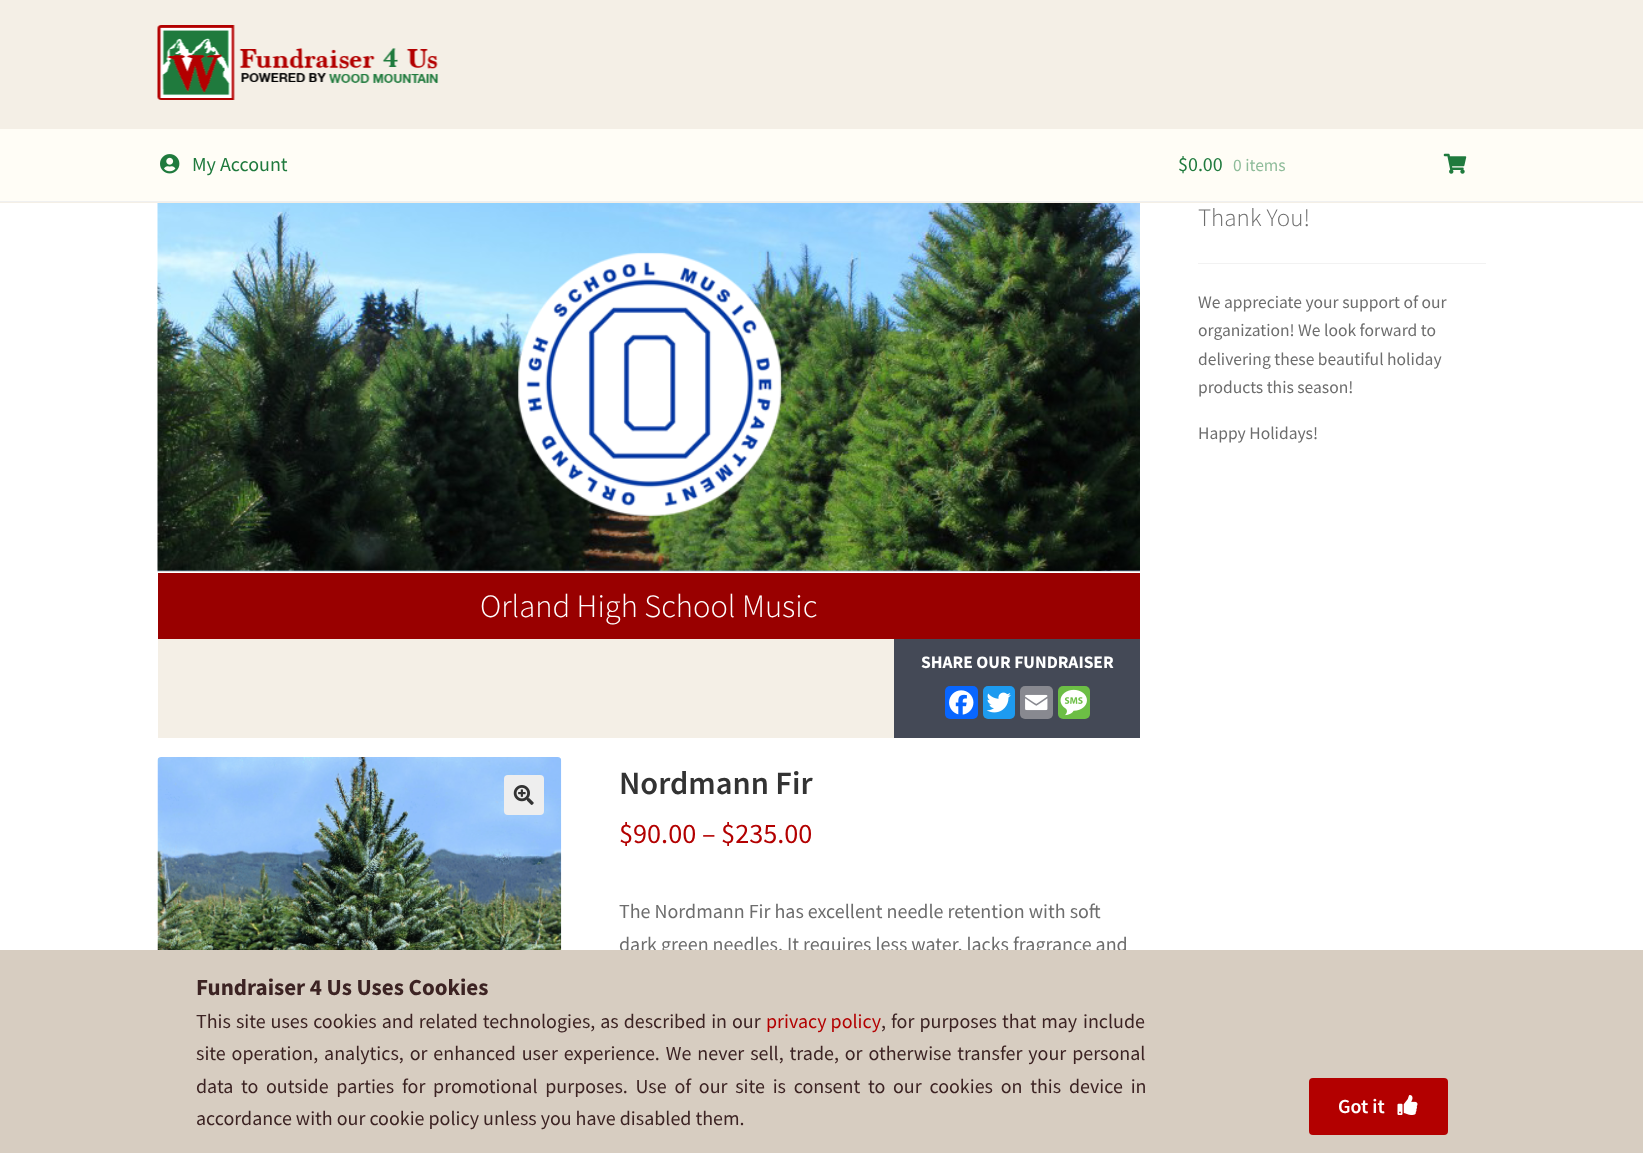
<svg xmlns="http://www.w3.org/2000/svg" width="1643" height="1153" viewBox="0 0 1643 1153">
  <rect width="100%" height="100%" fill="#ffffff"/>
  <rect x="0" y="0" width="1643" height="203" fill="#f4efe6"/>
  <rect x="0" y="201" width="1643" height="1" fill="#f0f0f0"/>
  <image x="157" y="25" width="282" height="75" href="img1.png"/>
  <rect x="0" y="129" width="1643" height="72" fill="#fffdf6"/>
  <image x="160" y="154" width="20" height="20" href="img2.png"/>
  <text x="192" y="171" font-family="Source Sans Pro" font-size="20" fill="#1f7a3d">My Account</text>
  <text x="1178" y="171" font-family="Source Sans Pro" font-size="20" fill="#1f7a3d">$0.00</text>
  <text x="1233" y="171" font-family="Source Sans Pro" font-size="17.5" fill="#8fbc9a">0 items</text>
  <image x="1443" y="153" width="24" height="21" href="img3.png"/>
  <rect x="1198" y="263" width="288" height="1" fill="#f2f2f2"/>
  <text x="1198" y="226" font-family="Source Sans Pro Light" font-size="25" font-weight="300" fill="#6d6d6d">Thank You!</text>
  <text x="1198" y="308" font-family="Source Sans Pro" font-size="17.5" fill="#6d6d6d">We appreciate your support of our</text>
  <text x="1198" y="336" font-family="Source Sans Pro" font-size="17.5" fill="#6d6d6d">organization! We look forward to</text>
  <text x="1198" y="365" font-family="Source Sans Pro" font-size="17.5" fill="#6d6d6d">delivering these beautiful holiday</text>
  <text x="1198" y="393" font-family="Source Sans Pro" font-size="17.5" fill="#6d6d6d">products this season!</text>
  <text x="1198" y="439" font-family="Source Sans Pro" font-size="17.5" fill="#6d6d6d">Happy Holidays!</text>
  <image x="157" y="203" width="983" height="369" href="img4.png"/>
  <rect x="158" y="571" width="982" height="1" fill="#d9d9d9"/>
  <rect x="158" y="573" width="982" height="66" fill="#990000"/>
  <text x="480" y="617" font-family="Source Sans Pro Light" font-size="32.5" font-weight="300" fill="#ffffff">Orland High School Music</text>
  <rect x="158" y="639" width="736" height="99" fill="#f4efe6"/>
  <rect x="894" y="639" width="246" height="99" fill="#444956"/>
  <text x="921" y="668" font-family="Source Sans Pro" font-size="17.5" font-weight="bold" fill="#ffffff">SHARE OUR FUNDRAISER</text>
  <rect x="945" y="686" width="33" height="33" rx="5" fill="#0866ff"/>
  <image x="949" y="690" width="25" height="25" href="img5.png"/>
  <rect x="983" y="686" width="32" height="33" rx="5" fill="#1d9bf0"/>
  <image x="986" y="692" width="25" height="21" href="img6.png"/>
  <rect x="1020" y="686" width="33" height="33" rx="5" fill="#888990"/>
  <image x="1025" y="694" width="23" height="17" href="img7.png"/>
  <rect x="1058" y="686" width="32" height="33" rx="5" fill="#6cbe45"/>
  <image x="1060" y="689" width="27" height="27" href="img8.png"/>
  <image x="157" y="757" width="405" height="193" href="img9.png"/>
  <rect x="504" y="775" width="40" height="40" rx="4" fill="#eeeeee"/>
  <image x="513" y="785" width="21" height="20" href="img10.png"/>
  <text x="619" y="794" font-family="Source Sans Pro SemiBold" font-size="32.5" font-weight="600" fill="#333333">Nordmann Fir</text>
  <text x="619" y="843" font-family="Source Sans Pro" font-size="28.25" fill="#b30000">$90.00 – $235.00</text>
  <text x="619" y="918" font-family="Source Sans Pro" font-size="20" fill="#6d6d6d">The Nordmann Fir has excellent needle retention with soft</text>
  <text x="619" y="951" font-family="Source Sans Pro" font-size="20" fill="#6d6d6d">dark green needles. It requires less water, lacks fragrance and</text>
  <rect x="0" y="950" width="1643" height="203" fill="#d7cdc1"/>
  <text x="196" y="995" font-family="Source Sans Pro" font-size="23" font-weight="bold" fill="#3c2323">Fundraiser 4 Us Uses Cookies</text>
  <text x="196" y="1028" word-spacing="1" font-family="Source Sans Pro" font-size="20" fill="#3c2323">This site uses cookies and related technologies, as described in our</text>
  <text x="766" y="1028" font-family="Source Sans Pro" font-size="20" fill="#b30000">privacy policy</text>
  <text x="881" y="1028" word-spacing="1" font-family="Source Sans Pro" font-size="20" fill="#3c2323">, for purposes that may</text>
  <text x="1083" y="1028" font-family="Source Sans Pro" font-size="20" fill="#3c2323">include</text>
  <text x="196" y="1060" word-spacing="1.9" font-family="Source Sans Pro" font-size="20" fill="#3c2323">site operation, analytics, or enhanced user experience. We never sell, trade, or otherwise transfer your personal</text>
  <text x="196" y="1093" word-spacing="3.75" font-family="Source Sans Pro" font-size="20" fill="#3c2323">data to</text>
  <text x="266" y="1093" word-spacing="3.75" font-family="Source Sans Pro" font-size="20" fill="#3c2323">outside parties for promotional purposes. Use of our site is consent to our cookies on this device in</text>
  <text x="196" y="1125" font-family="Source Sans Pro" font-size="20" fill="#3c2323">accordance with our cookie policy unless you have disabled them.</text>
  <rect x="1309" y="1078" width="139" height="57" rx="4" fill="#b30000"/>
  <text x="1338" y="1113" font-family="Source Sans Pro SemiBold" font-size="20" font-weight="600" fill="#ffffff">Got it</text>
  <image x="1397" y="1095" width="21" height="20" href="img11.png"/>
</svg>
